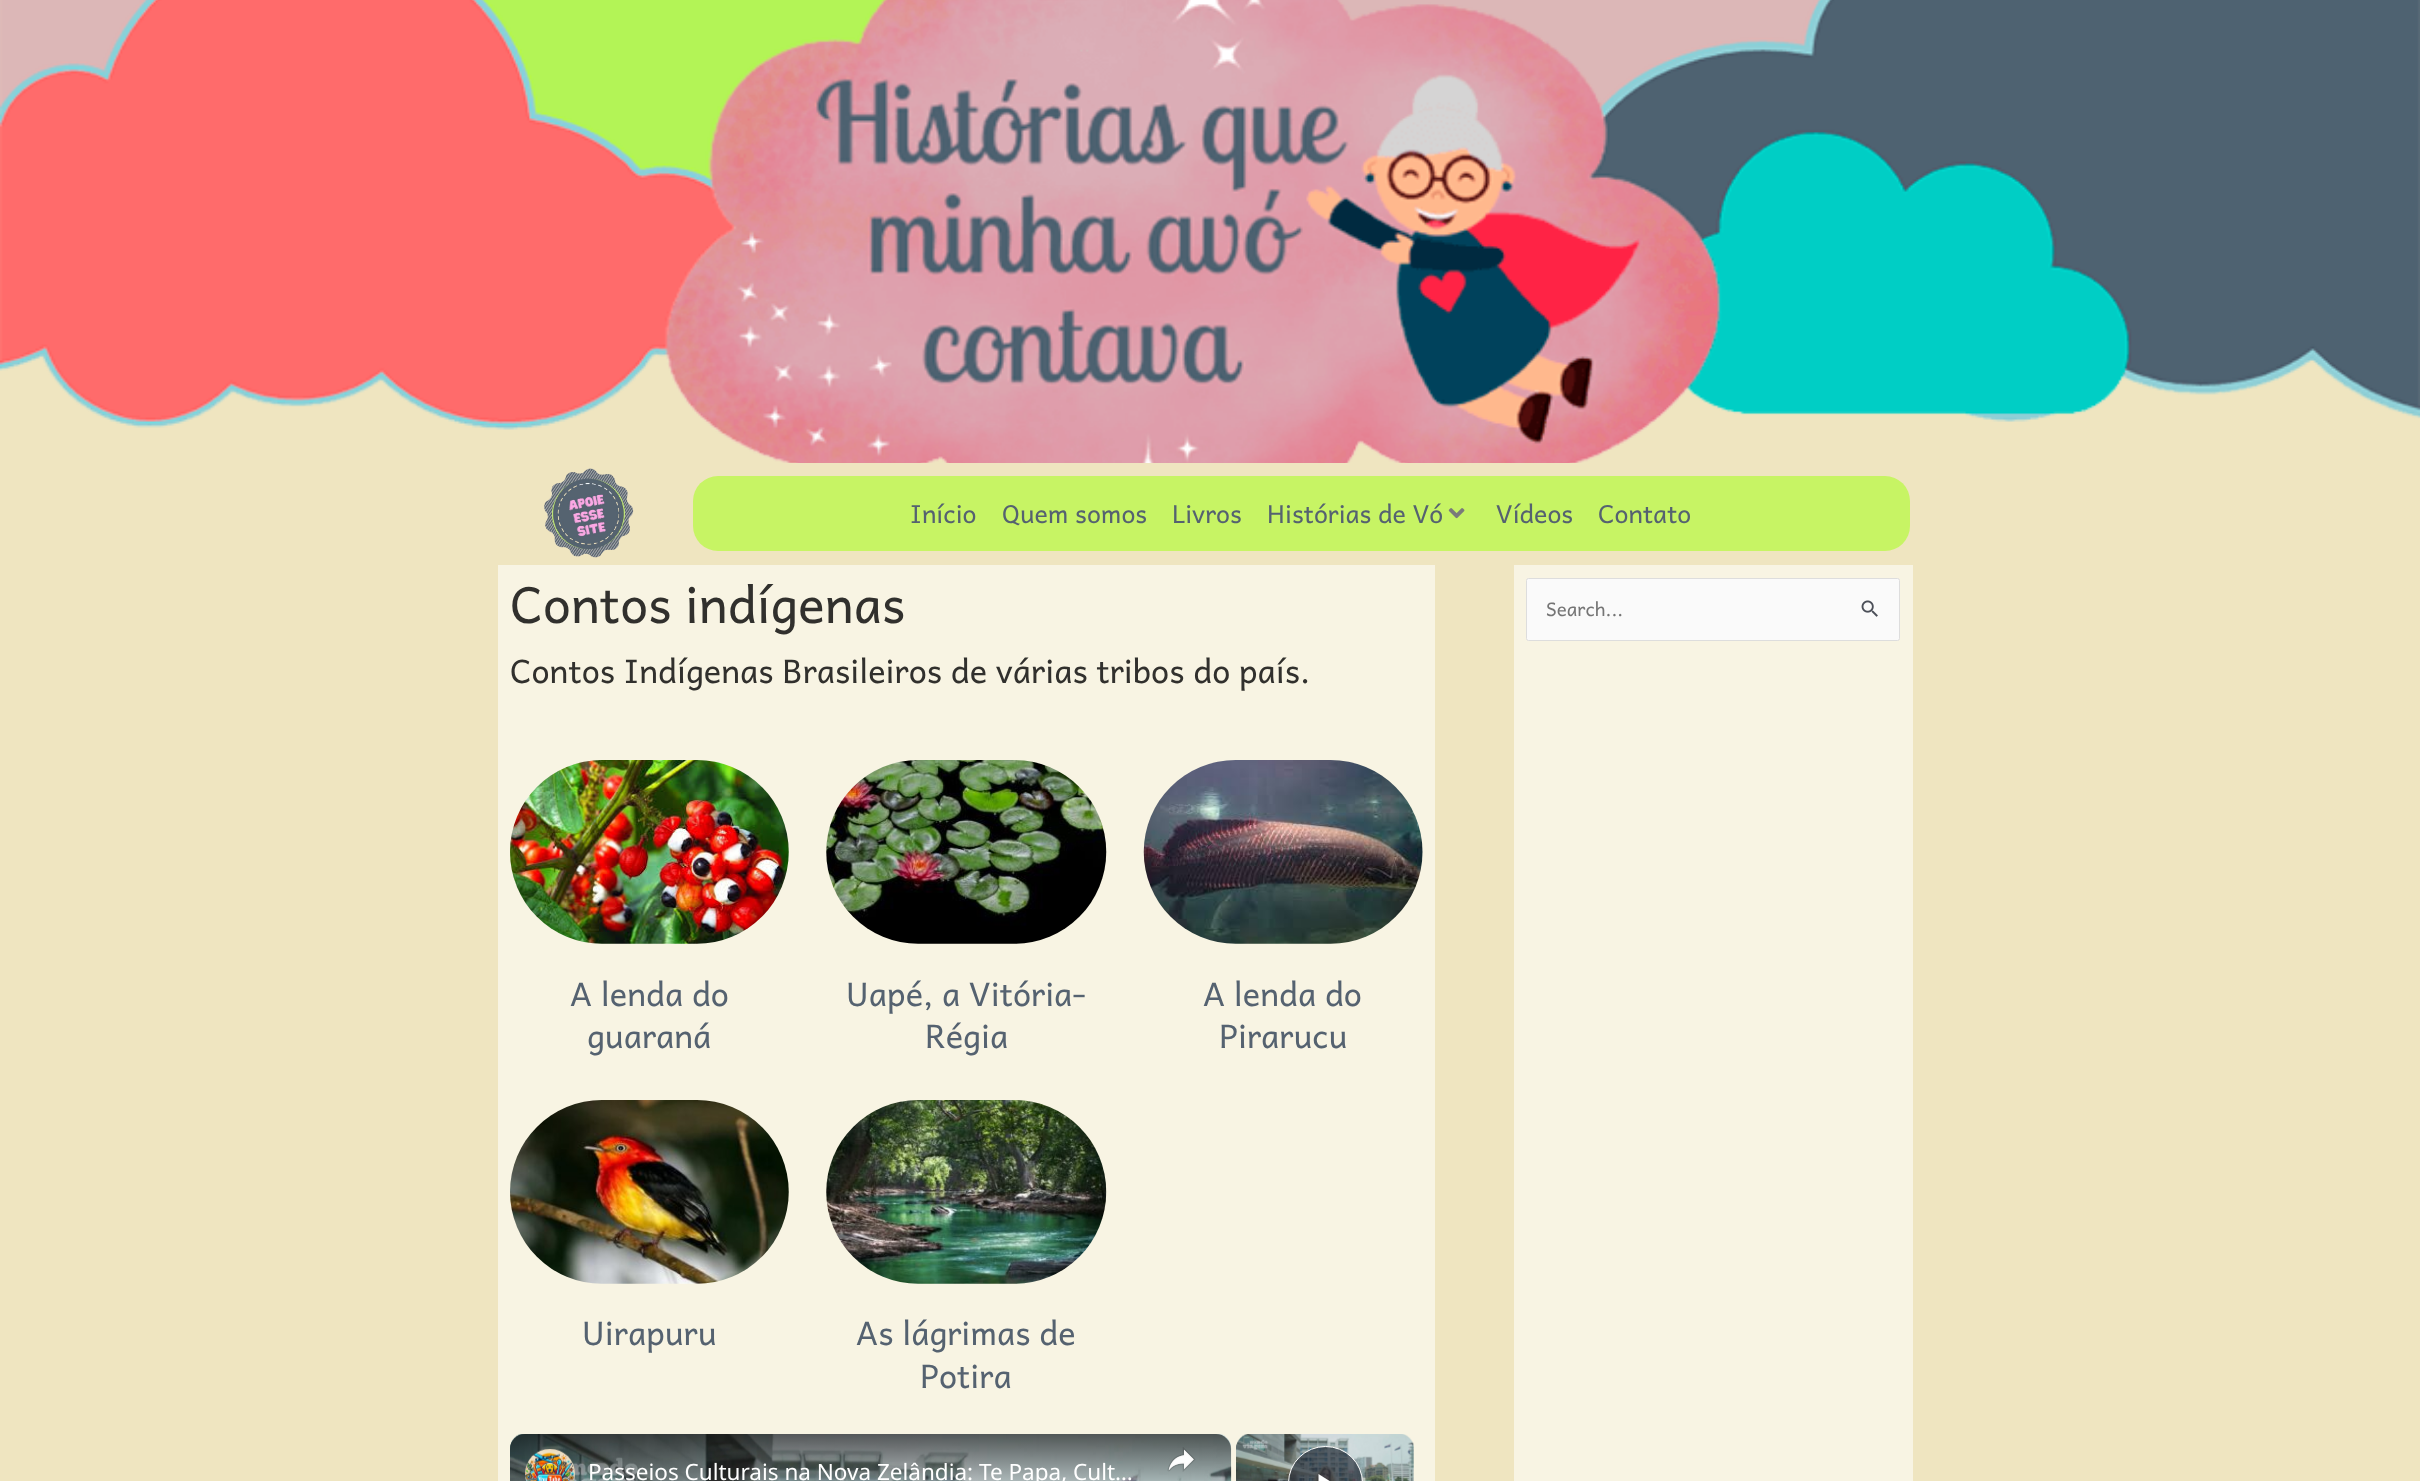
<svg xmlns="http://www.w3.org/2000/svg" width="2420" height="1481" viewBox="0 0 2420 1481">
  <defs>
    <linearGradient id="g1" gradientUnits="userSpaceOnUse" x1="871" y1="1434" x2="871" y2="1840"><stop offset="0" stop-color="#000000" stop-opacity="0.6"/><stop offset="0.16" stop-color="#000000" stop-opacity="0"/><stop offset="0.84" stop-color="#000000" stop-opacity="0"/><stop offset="1" stop-color="#000000" stop-opacity="0.8"/></linearGradient>
  </defs>
  <rect width="100%" height="100%" fill="#efe5c0"/>
  <image x="0" y="0" width="2420" height="463" href="img1.png"/>
  <image x="544" y="468" width="90" height="90" href="img2.png"/>
  <rect x="693" y="476" width="1217" height="75" rx="25" fill="#c7f464"/>
  <text x="910" y="523" font-family="Andika" font-size="25" fill="#556270">Início</text>
  <text x="1002" y="523" font-family="Andika" font-size="25" fill="#556270">Quem somos</text>
  <text x="1172" y="523" font-family="Andika" font-size="25" fill="#556270">Livros</text>
  <text x="1267" y="523" font-family="Andika" font-size="25" fill="#556270">Histórias de Vó</text>
  <image x="1448" y="508" width="17" height="11" href="img3.png"/>
  <text x="1496" y="523" font-family="Andika" font-size="25" fill="#556270">Vídeos</text>
  <text x="1598" y="523" font-family="Andika" font-size="25" fill="#556270">Contato</text>
  <rect x="498" y="565" width="937" height="916" fill="#f8f4e3"/>
  <text x="510" y="623" font-family="Andika" font-size="50" fill="#31302d">Contos indígenas</text>
  <text x="510" y="683" font-family="Andika" font-size="32.5" fill="#31302d">Contos Indígenas Brasileiros de várias tribos do país.</text>
  <image x="510" y="760" width="279" height="184" href="img4.png"/>
  <text x="570" y="1006" font-family="Andika" font-size="32.5" fill="#556270">A lenda do</text>
  <text x="587" y="1048" font-family="Andika" font-size="32.5" fill="#556270">guaraná</text>
  <image x="826" y="760" width="281" height="184" href="img5.png"/>
  <text x="846" y="1006" font-family="Andika" font-size="32.5" fill="#556270">Uapé, a Vitória-</text>
  <text x="925" y="1048" font-family="Andika" font-size="32.5" fill="#556270">Régia</text>
  <image x="1143" y="760" width="280" height="184" href="img6.png"/>
  <text x="1203" y="1006" font-family="Andika" font-size="32.5" fill="#556270">A lenda do</text>
  <text x="1219" y="1048" font-family="Andika" font-size="32.5" fill="#556270">Pirarucu</text>
  <image x="510" y="1100" width="279" height="184" href="img7.png"/>
  <text x="582" y="1345" font-family="Andika" font-size="32.5" fill="#556270">Uirapuru</text>
  <image x="826" y="1100" width="281" height="184" href="img8.png"/>
  <text x="856" y="1345" font-family="Andika" font-size="32.5" fill="#556270">As lágrimas de</text>
  <text x="920" y="1388" font-family="Andika" font-size="32.5" fill="#556270">Potira</text>
  <circle cx="1219" cy="1444" r="10" fill="#fbf9ee"/>
  <image x="510" y="1434" width="722" height="47" href="img9.png"/>
  <image x="510" y="1434" width="722" height="47" href="img10.png"/>
  <rect x="510" y="1434" width="721" height="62" rx="15" fill="url(#g1)"/>
  <image x="525" y="1449" width="50" height="32" href="img11.png"/>
  <text x="588" y="1480" font-family="Noto Sans" font-size="22.5" fill="#ffffff">Passeios Culturais na Nova Zelândia: Te Papa, Cult…</text>
  <image x="1167" y="1447" width="29" height="25" href="img12.png"/>
  <image x="1236" y="1434" width="178" height="47" href="img13.png"/>
  <image x="1236" y="1434" width="178" height="47" href="img14.png"/>
  <rect x="1288.5" y="1446.5" width="74" height="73" rx="37" fill="#2b333f" fill-opacity="0.7" stroke="#ffffff"/>
  <path d="M1318.5 1474V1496L1336 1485Z" fill="#ffffff"/>
  <rect x="1514" y="565" width="399" height="916" fill="#f8f4e3"/>
  <rect x="1526.5" y="578.5" width="373" height="62" rx="2" fill="#fafafa" stroke="#dddddd"/>
  <text x="1546" y="616" font-family="Andika" font-size="18.75" fill="#757575">Search...</text>
  <image x="1861" y="600" width="17" height="17" href="img15.png"/>
</svg>
